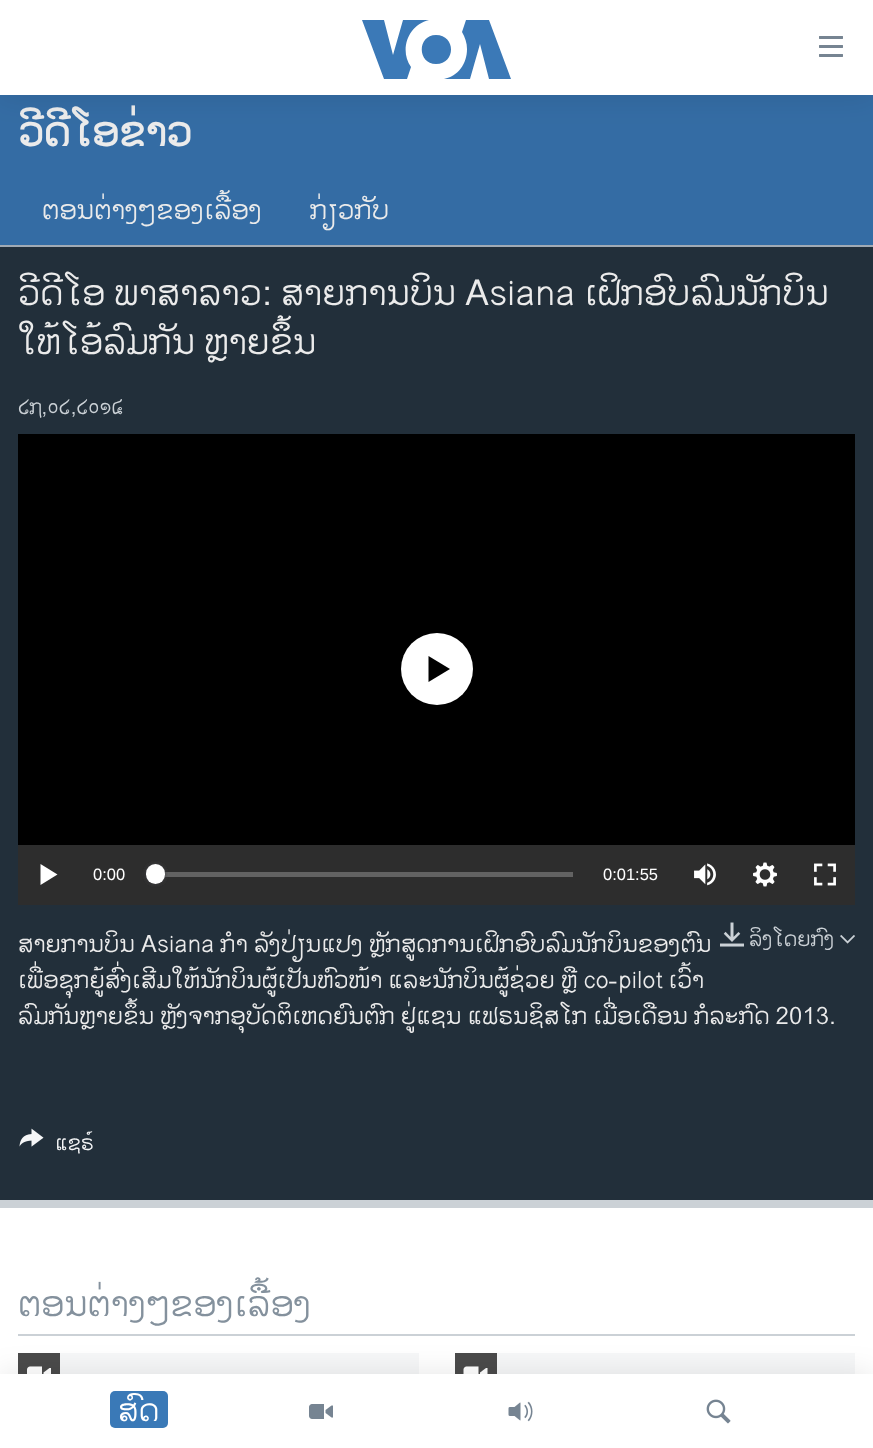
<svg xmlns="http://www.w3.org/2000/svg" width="873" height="1448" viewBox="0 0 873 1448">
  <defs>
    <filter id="blur1" x="-50%" y="-200%" width="200%" height="500%"><feGaussianBlur stdDeviation="2"/></filter>
    <filter id="blur2" x="-50%" y="-200%" width="200%" height="500%"><feGaussianBlur stdDeviation="15"/></filter>
  </defs>
  <rect width="100%" height="100%" fill="#ffffff"/>
  <rect x="0" y="95" width="873" height="150" fill="#346ca4"/>
  <text x="18" y="146" font-family="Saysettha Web" font-size="41.5" font-weight="bold" fill="#ebebeb">ວີດີໂອຂ່າວ</text>
  <text x="42" y="219" font-family="Saysettha Web" font-size="27" fill="#ebebeb">ຕອນຕ່າງໆຂອງເລື້ອງ</text>
  <text x="310" y="219" font-family="Saysettha Web" font-size="27" fill="#ebebeb">ກ່ຽວກັບ</text>
  <rect x="0" y="247" width="873" height="953" fill="#222f3a"/>
  <rect x="0" y="245" width="873" height="2" fill="#a1aab4"/>
  <rect x="0" y="1200" width="873" height="8" fill="#cbd1d6"/>
  <text x="18" y="305" font-family="Saysettha Web" font-size="36" fill="#ebebeb">ວີດີໂອ ພາສາລາວ: ສາຍການບິນ Asiana ເຝິກອົບລົມນັກບິນ</text>
  <text x="18" y="354" font-family="Saysettha Web" font-size="36" fill="#ebebeb">ໃຫ້ໂອ້ລົມກັນ ຫຼາຍຂຶ້ນ</text>
  <text x="18" y="414" font-family="Saysettha Web" font-size="21" fill="#cbd1d6">໒໗,໐໒,໒໐໑໔</text>
  <rect x="18" y="434" width="837" height="411" fill="#000000"/>
  <circle cx="437" cy="669" r="36" fill="#ffffff"/>
  <path d="M428.5 682L450 669L428.5 656Z" fill="#000000"/>
  <rect x="18" y="845" width="837" height="60" fill="#2d2d2d"/>
  <path d="M40.5 885L57.5 874.5L40.5 864Z" fill="#ffffff"/>
  <text x="93" y="880" font-family="Liberation Sans" font-size="16.5" fill="#ffffff">0:00</text>
  <rect x="164" y="872" width="409" height="5" fill="#626262"/>
  <rect x="146" y="864" width="19" height="20" rx="9.5" fill="#414144" filter="url(#blur1)"/>
  <rect x="146" y="864" width="19" height="20" rx="9.5" fill="#ffffff"/>
  <text x="603" y="880" font-family="Liberation Sans" font-size="16.5" fill="#ffffff">0:01:55</text>
  <image x="694" y="863" width="22" height="23" href="img1.png"/>
  <image x="753" y="862" width="24" height="25" href="img2.png"/>
  <image x="814" y="863" width="22" height="23" href="img3.png"/>
  <image x="720" y="922" width="24" height="25" href="img4.png"/>
  <text x="749" y="946" font-family="Saysettha Web" font-size="21" fill="#cbd1d6">ລິງໂດຍກົງ</text>
  <image x="840" y="935" width="15" height="9" href="img5.png"/>
  <text x="18" y="952" font-family="Saysettha Web" font-size="24" fill="#ebebeb">ສາຍການບິນ Asiana ກໍາ ລັງປ່ຽນແປງ ຫຼັກສູດການເຝິກອົບລົມນັກບິນຂອງຕົນ</text>
  <text x="18" y="988" font-family="Saysettha Web" font-size="24" fill="#ebebeb">ເພື່ອຊຸກຍູ້ສົ່ງເສີມໃຫ້ນັກບິນຜູ້ເປັນຫົວໜ້າ ແລະນັກບິນຜູ້ຊ່ວຍ ຫຼື co-pilot ເວົ້າ</text>
  <text x="18" y="1024" font-family="Saysettha Web" font-size="24" fill="#ebebeb">ລົມກັນຫຼາຍຂຶ້ນ ຫຼັງຈາກອຸບັດຕິເຫດຍົນຕົກ ຢູ່ແຊນ ແຟຣນຊິສໂກ ເມື່ອເດືອນ ກໍລະກົດ 2013.</text>
  <image x="19" y="1128" width="25" height="19" href="img6.png"/>
  <text x="55" y="1150" font-family="Saysettha Web" font-size="21" fill="#f6f7f8">ແຊຣ໌</text>
  <rect x="18" y="1334" width="837" height="2" fill="#cbd1d6"/>
  <text x="18" y="1316" font-family="Saysettha Web" font-size="36" fill="#84919d">ຕອນຕ່າງໆຂອງເລື້ອງ</text>
  <rect x="18" y="1353" width="42" height="21" fill="#4a4a4a"/>
  <image x="27" y="1366" width="24" height="8" href="img7.png"/>
  <rect x="60" y="1353" width="359" height="21" fill="#f6f7f8"/>
  <rect x="455" y="1353" width="42" height="21" fill="#4a4a4a"/>
  <image x="463" y="1366" width="25" height="8" href="img8.png"/>
  <rect x="497" y="1353" width="358" height="21" fill="#f6f7f8"/>
  <rect x="0" y="0" width="873" height="95" fill="#000000" fill-opacity="0.1" filter="url(#blur2)"/>
  <rect x="0" y="0" width="873" height="95" fill="#ffffff"/>
  <path d="M411 67L407 79H384L362 20H384L393 55L403 20H429C408 25 399 50 411 67ZM436 35C417 35 417 64 436 64C456 64 456 35 436 35ZM467 49C467 64 458 76 444 79H470L480 44L489 79H511L489 20H466L462 32C465 37 467 43 467 49Z" fill="#3b79b7"/>
  <image x="819" y="36" width="24" height="21" href="img9.png"/>
  <rect x="0" y="1374" width="873" height="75" fill="#000000" fill-opacity="0.1" filter="url(#blur2)"/>
  <rect x="0" y="1374" width="873" height="74" fill="#ffffff"/>
  <rect x="110" y="1391" width="58" height="37" rx="5" fill="#3a79b7"/>
  <text x="118" y="1421" font-family="Saysettha Web" font-size="32" fill="#ffffff">ສົດ</text>
  <image x="309" y="1404" width="24" height="15" href="img10.png"/>
  <image x="508" y="1401" width="25" height="21" href="img11.png"/>
  <image x="706" y="1399" width="25" height="25" href="img12.png"/>
</svg>
